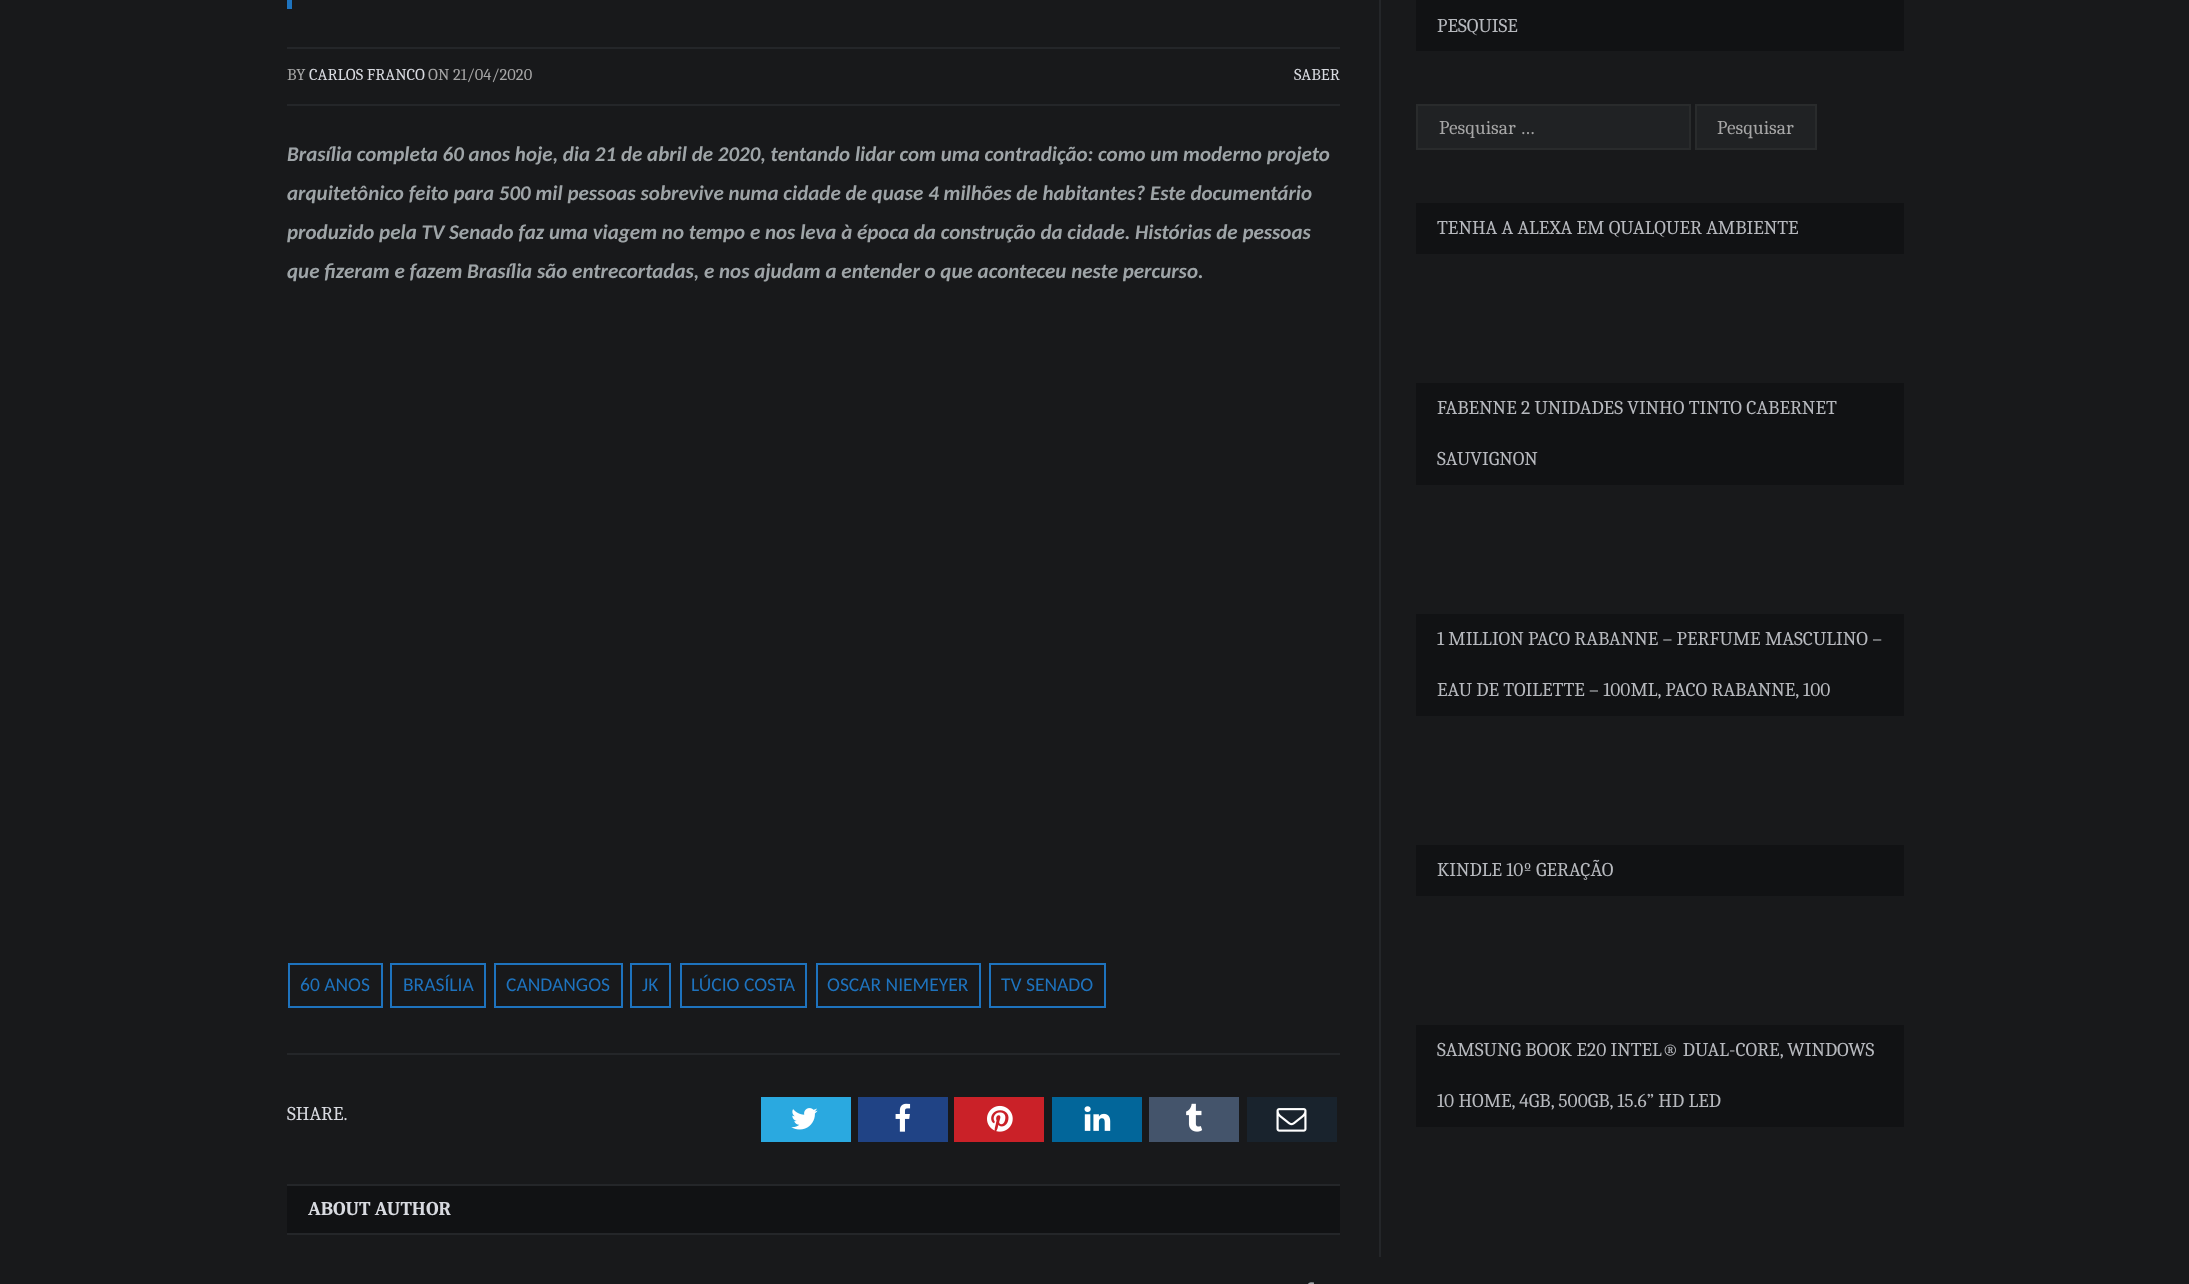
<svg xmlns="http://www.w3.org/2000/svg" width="2189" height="1284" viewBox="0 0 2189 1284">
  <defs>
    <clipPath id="clip1"><rect x="287" y="1055" width="1053" height="129"/></clipPath>
    <clipPath id="clip2"><rect x="1439" y="116" width="210" height="22"/></clipPath>
  </defs>
  <rect width="100%" height="100%" fill="#18191b"/>
  <rect x="287" y="0" width="5" height="9" fill="#1e73be"/>
  <rect x="287" y="47" width="1053" height="2" fill="#242629"/>
  <rect x="287" y="104" width="1053" height="2" fill="#242629"/>
  <text x="287" y="80" font-family="Caladea" font-size="16.5" fill="#a6a6a6">BY</text>
  <text x="309" y="80" font-family="Caladea" font-size="16.5" fill="#d8dae0">CARLOS FRANCO</text>
  <text x="428" y="80" font-family="Caladea" font-size="16.5" fill="#a6a6a6">ON 21/04/2020</text>
  <text x="1294" y="80" font-family="Caladea" font-size="16.5" fill="#d8dae0">SABER</text>
  <text x="287" y="161" font-family="Carlito" font-size="21" font-weight="bold" font-style="italic" fill="#9ea4a7">Brasília completa 60 anos hoje, dia 21 de abril de 2020, tentando lidar com uma contradição: como um moderno projeto</text>
  <text x="287" y="200" font-family="Carlito" font-size="21" font-weight="bold" font-style="italic" fill="#9ea4a7">arquitetônico feito para 500 mil pessoas sobrevive numa cidade de quase 4 milhões de habitantes? Este documentário</text>
  <text x="287" y="239" font-family="Carlito" font-size="21" font-weight="bold" font-style="italic" fill="#9ea4a7">produzido pela TV Senado faz uma viagem no tempo e nos leva à época da construção da cidade. Histórias de pessoas</text>
  <text x="287" y="278" font-family="Carlito" font-size="21" font-weight="bold" font-style="italic" fill="#9ea4a7">que fizeram e fazem Brasília são entrecortadas, e nos ajudam a entender o que aconteceu neste percurso.</text>
  <rect x="289" y="964" width="93" height="43" fill="none" stroke="#1e73be" stroke-width="2"/>
  <text x="300" y="991" font-family="Carlito" font-size="19.5" fill="#1e73be">60 ANOS</text>
  <rect x="391" y="964" width="94" height="43" fill="none" stroke="#1e73be" stroke-width="2"/>
  <text x="403" y="991" font-family="Carlito" font-size="19.5" fill="#1e73be">BRASÍLIA</text>
  <rect x="495" y="964" width="127" height="43" fill="none" stroke="#1e73be" stroke-width="2"/>
  <text x="506" y="991" font-family="Carlito" font-size="19.5" fill="#1e73be">CANDANGOS</text>
  <rect x="631" y="964" width="39" height="43" fill="none" stroke="#1e73be" stroke-width="2"/>
  <text x="642" y="991" font-family="Carlito" font-size="19.5" fill="#1e73be">JK</text>
  <rect x="681" y="964" width="125" height="43" fill="none" stroke="#1e73be" stroke-width="2"/>
  <text x="691" y="991" font-family="Carlito" font-size="19.5" fill="#1e73be">LÚCIO COSTA</text>
  <rect x="817" y="964" width="163" height="43" fill="none" stroke="#1e73be" stroke-width="2"/>
  <text x="827" y="991" font-family="Carlito" font-size="19.5" fill="#1e73be">OSCAR NIEMEYER</text>
  <rect x="990" y="964" width="115" height="43" fill="none" stroke="#1e73be" stroke-width="2"/>
  <text x="1001" y="991" font-family="Carlito" font-size="19.5" fill="#1e73be">TV SENADO</text>
  <rect x="287" y="1053" width="1053" height="2" fill="#242629"/>
  <g clip-path="url(#clip1)">
    <text x="287" y="1120" font-family="Caladea" font-size="19.5" fill="#d8dae0">SHARE.</text>
  </g>
  <rect x="761" y="1097" width="90" height="45" fill="#2aa9e0"/>
  <image x="791" y="1108" width="27" height="22" href="img1.png"/>
  <rect x="858" y="1097" width="90" height="45" fill="#204385"/>
  <image x="895" y="1103" width="16" height="29" href="img2.png"/>
  <rect x="954" y="1097" width="90" height="45" fill="#ca2128"/>
  <image x="987" y="1105" width="26" height="27" href="img3.png"/>
  <rect x="1052" y="1097" width="90" height="45" fill="#02669a"/>
  <image x="1084" y="1106" width="27" height="25" href="img4.png"/>
  <rect x="1149" y="1097" width="90" height="45" fill="#44546b"/>
  <image x="1186" y="1103" width="17" height="29" href="img5.png"/>
  <rect x="1247" y="1097" width="90" height="45" fill="#19232d"/>
  <image x="1276" y="1108" width="31" height="24" href="img6.png"/>
  <rect x="287" y="1186" width="1053" height="47" fill="#111214"/>
  <rect x="287" y="1184" width="1053" height="2" fill="#242629"/>
  <rect x="287" y="1233" width="1053" height="2" fill="#242629"/>
  <text x="308" y="1215" font-family="Caladea" font-size="19.5" font-weight="bold" fill="#d8dae0">ABOUT AUTHOR</text>
  <image x="1308" y="1282" width="6" height="2" href="img7.png"/>
  <rect x="1379" y="0" width="2" height="1257" fill="#242629"/>
  <rect x="1416" y="0" width="488" height="51" fill="#111214"/>
  <text x="1437" y="32" font-family="Caladea" font-size="19.5" fill="#b7b9be">PESQUISE</text>
  <rect x="1417" y="105" width="273" height="44" fill="#202224" stroke="#292b2c" stroke-width="2"/>
  <g clip-path="url(#clip2)">
    <text x="1439" y="134" font-family="Caladea" font-size="19.5" fill="#a6a6a6">Pesquisar …</text>
  </g>
  <rect x="1696" y="105" width="120" height="44" fill="#202224" stroke="#292b2c" stroke-width="2"/>
  <text x="1717" y="134" font-family="Caladea" font-size="19.5" fill="#a6a6a6">Pesquisar</text>
  <rect x="1416" y="203" width="488" height="51" fill="#111214"/>
  <text x="1437" y="234" font-family="Caladea" font-size="19.5" fill="#b7b9be">TENHA A ALEXA EM QUALQUER AMBIENTE</text>
  <rect x="1416" y="383" width="488" height="102" fill="#111214"/>
  <text x="1437" y="414" font-family="Caladea" font-size="19.5" fill="#b7b9be">FABENNE 2 UNIDADES VINHO TINTO CABERNET</text>
  <text x="1437" y="465" font-family="Caladea" font-size="19.5" fill="#b7b9be">SAUVIGNON</text>
  <rect x="1416" y="614" width="488" height="102" fill="#111214"/>
  <text x="1437" y="645" font-family="Caladea" font-size="19.5" fill="#b7b9be">1 MILLION PACO RABANNE – PERFUME MASCULINO –</text>
  <text x="1437" y="696" font-family="Caladea" font-size="19.5" fill="#b7b9be">EAU DE TOILETTE – 100ML, PACO RABANNE, 100</text>
  <rect x="1416" y="845" width="488" height="51" fill="#111214"/>
  <text x="1437" y="876" font-family="Caladea" font-size="19.5" fill="#b7b9be">KINDLE 10º GERAÇÃO</text>
  <rect x="1416" y="1025" width="488" height="102" fill="#111214"/>
  <text x="1437" y="1056" font-family="Caladea" font-size="19.5" fill="#b7b9be">SAMSUNG BOOK E20 INTEL® DUAL-CORE, WINDOWS</text>
  <text x="1437" y="1107" font-family="Caladea" font-size="19.5" fill="#b7b9be">10 HOME, 4GB, 500GB, 15.6” HD LED</text>
</svg>
